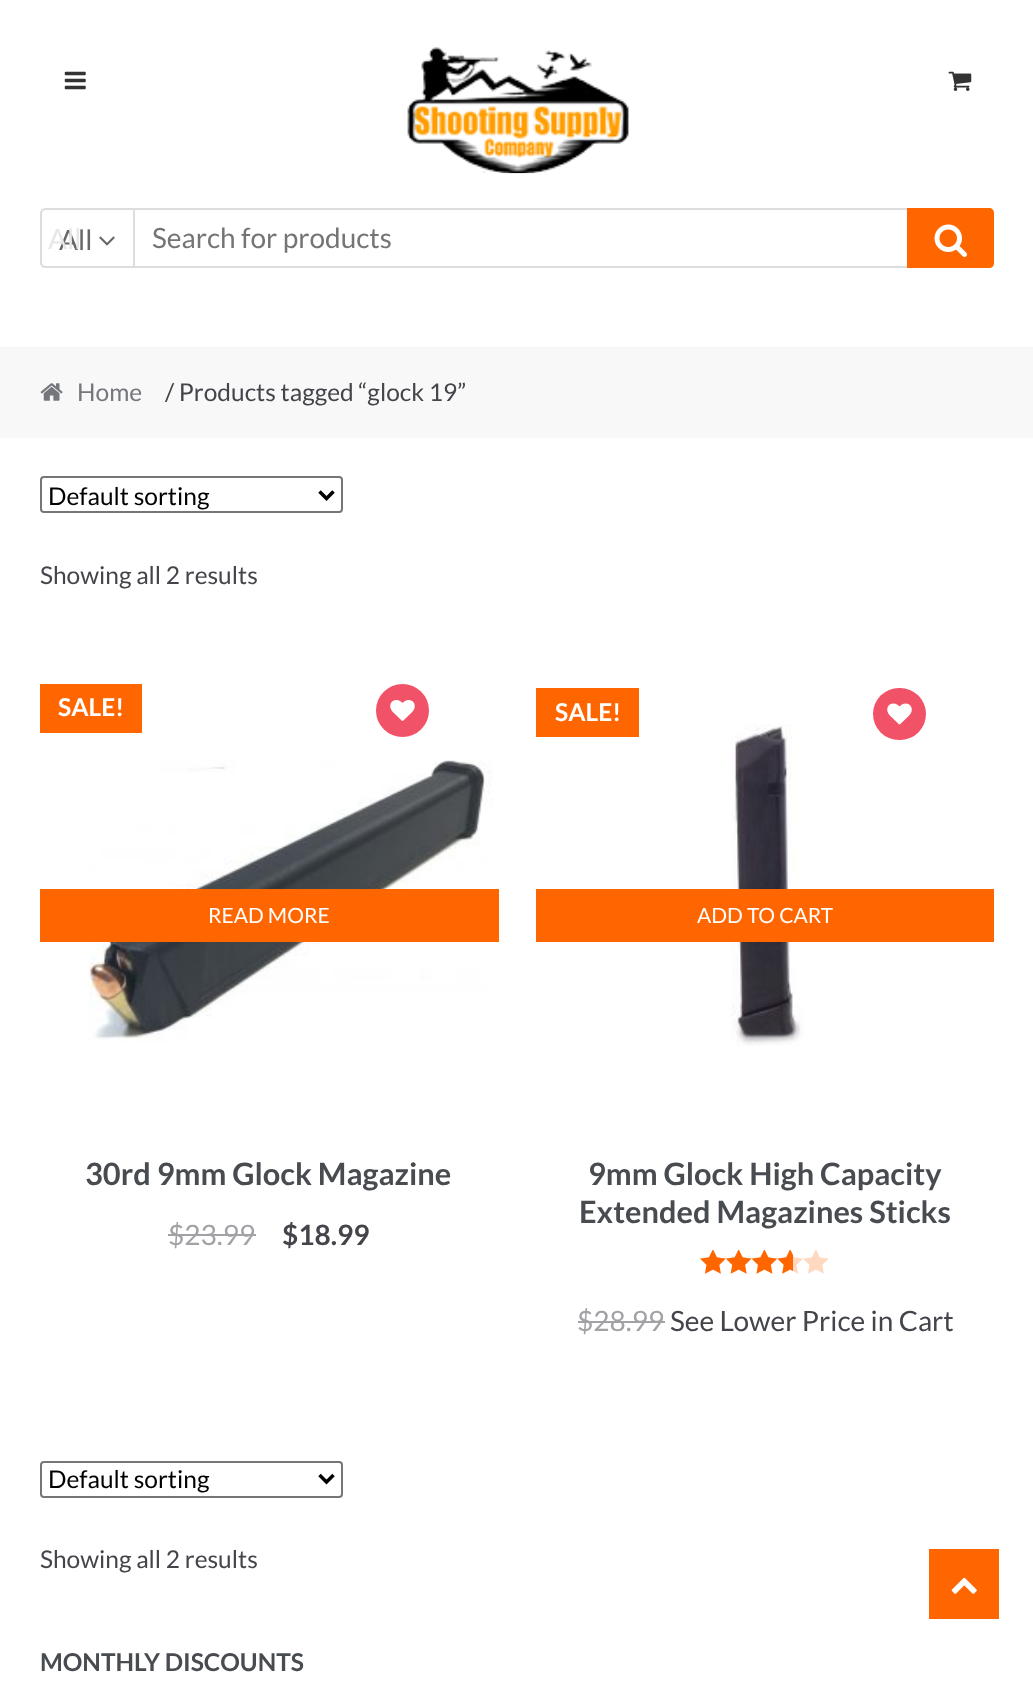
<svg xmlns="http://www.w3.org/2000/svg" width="1033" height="1688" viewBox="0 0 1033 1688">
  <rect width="100%" height="100%" fill="#ffffff"/>
  <rect x="0" y="347" width="1033" height="1" fill="#f5f5f5"/>
  <image x="64" y="71" width="22" height="19" href="img1.png"/>
  <image x="407" y="46" width="223" height="128" href="img2.png"/>
  <image x="948" y="71" width="24" height="20" href="img3.png"/>
  <path d="M45 209H134V267H45C43 267 41 265 41 263V213C41 211 43 209 45 209Z" fill="none" stroke="#dddddd" stroke-width="2"/>
  <text x="59" y="250" font-family="Lato" font-size="28" fill="#666666">All</text>
  <text x="48" y="249" font-family="Lato" font-size="28" fill="#e7e7e7">All</text>
  <image x="99" y="236" width="16" height="10" href="img4.png"/>
  <rect x="135" y="208" width="772" height="2" fill="#dddddd"/>
  <rect x="135" y="266" width="772" height="2" fill="#dddddd"/>
  <text x="152" y="248" font-family="Lato" font-size="28" fill="#757575">Search for products</text>
  <path d="M907 208H989C992 208 994 210 994 213V263C994 266 992 268 989 268H907Z" fill="#ff6600"/>
  <image x="934" y="224" width="33" height="33" href="img5.png"/>
  <rect x="0" y="348" width="1033" height="90" fill="#f8f8f8"/>
  <image x="40" y="383" width="23" height="18" href="img6.png"/>
  <text x="77" y="401" font-family="Lato" font-size="24.5" fill="#75777d">Home</text>
  <text x="165" y="401" font-family="Lato" font-size="24.5" fill="#43454b">/ Products tagged “glock 19”</text>
  <rect x="41" y="477" width="301" height="35" rx="3" fill="none" stroke="#767676" stroke-width="2"/>
  <path d="M319.5 491.5L326.5 498.5L333.5 491.5" fill="none" stroke="#000000" stroke-width="3.5"/>
  <text x="48" y="505" font-family="Lato" font-size="24.5" fill="#000000">Default sorting</text>
  <text x="40" y="584" font-family="Lato" font-size="24.5" fill="#43454b">Showing all 2 results</text>
  <circle cx="402.5" cy="710.5" r="26.5" fill="#f25268"/>
  <image x="390" y="700" width="25" height="21" href="img7.png"/>
  <rect x="40" y="684" width="102" height="49" fill="#ff6600"/>
  <text x="58" y="716" font-family="Lato" font-size="24.5" font-weight="bold" fill="#ffffff">SALE!</text>
  <image x="88" y="760" width="405" height="282" href="img8.png"/>
  <text x="85" y="1185" font-family="Lato" font-size="30.75" font-weight="bold" fill="#484c51">30rd 9mm Glock Magazine</text>
  <text x="168" y="1245" font-family="Lato" font-size="28" fill="#a1a2a5">$23.99</text>
  <rect x="168" y="1234" width="88" height="2" fill="#a1a2a5"/>
  <text x="282" y="1245" font-family="Lato" font-size="28" font-weight="bold" fill="#43454b">$18.99</text>
  <rect x="40" y="889" width="459" height="53" fill="#ff6600"/>
  <text x="208" y="923" font-family="Lato" font-size="21" fill="#ffffff">READ MORE</text>
  <rect x="873" y="688" width="53" height="52" rx="26" fill="#f25268"/>
  <image x="887" y="703" width="25" height="22" href="img9.png"/>
  <rect x="536" y="688" width="103" height="49" fill="#ff6600"/>
  <text x="555" y="721" font-family="Lato" font-size="24.5" font-weight="bold" fill="#ffffff">SALE!</text>
  <image x="731" y="724" width="73" height="322" href="img10.png"/>
  <text x="588" y="1185" font-family="Lato" font-size="30.75" font-weight="bold" fill="#484c51">9mm Glock High Capacity</text>
  <text x="579" y="1223" font-family="Lato" font-size="30.75" font-weight="bold" fill="#484c51">Extended Magazines Sticks</text>
  <image x="700" y="1250" width="129" height="24" href="img11.png"/>
  <image x="700" y="1250" width="93" height="24" href="img12.png"/>
  <text x="577" y="1331" font-family="Lato" font-size="28" fill="#a1a2a5">$28.99</text>
  <rect x="578" y="1321" width="87" height="2" fill="#a1a2a5"/>
  <text x="670" y="1331" font-family="Lato" font-size="28" fill="#43454b">See Lower Price in Cart</text>
  <rect x="536" y="889" width="458" height="53" fill="#ff6600"/>
  <text x="697" y="923" font-family="Lato" font-size="21" fill="#ffffff">ADD TO CART</text>
  <rect x="41" y="1462" width="301" height="35" rx="3" fill="none" stroke="#767676" stroke-width="2"/>
  <path d="M319.5 1475L326.5 1482L333.5 1475" fill="none" stroke="#000000" stroke-width="3.5"/>
  <text x="48" y="1488" font-family="Lato" font-size="24.5" fill="#000000">Default sorting</text>
  <text x="40" y="1568" font-family="Lato" font-size="24.5" fill="#43454b">Showing all 2 results</text>
  <text x="40" y="1671" font-family="Lato" font-size="24.5" font-weight="bold" fill="#484c51">MONTHLY DISCOUNTS</text>
  <rect x="929" y="1549" width="70" height="70" fill="#ff6600"/>
  <image x="951" y="1577" width="26" height="17" href="img13.png"/>
</svg>
